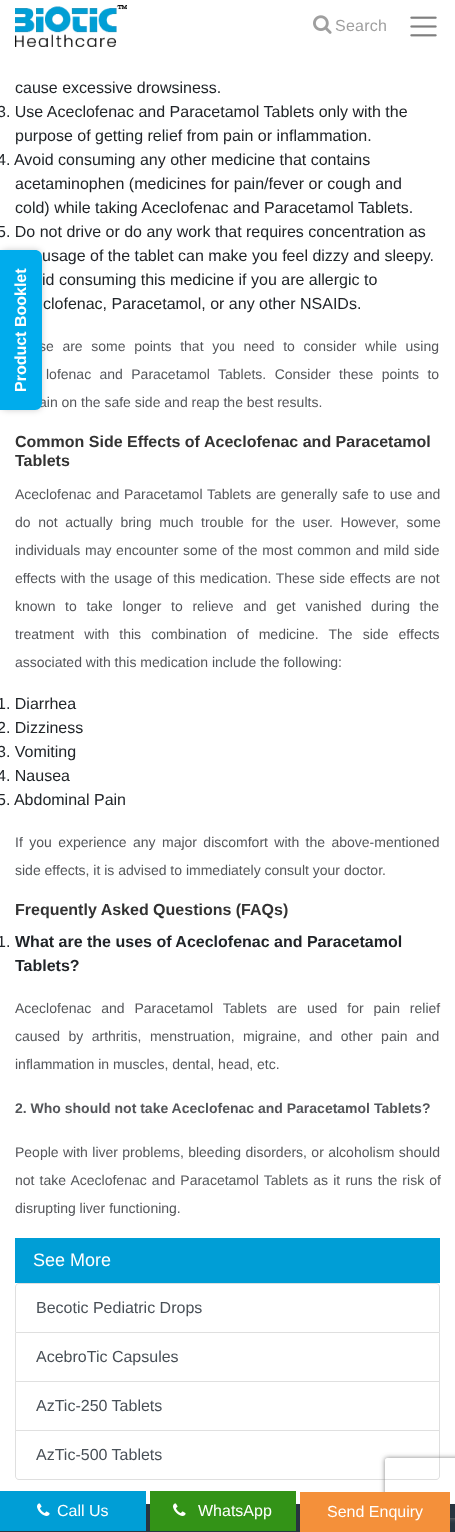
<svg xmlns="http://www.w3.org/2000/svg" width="455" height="1532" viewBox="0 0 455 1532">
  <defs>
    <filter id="blur1" x="-50%" y="-200%" width="200%" height="500%"><feGaussianBlur stdDeviation="3"/></filter>
    <clipPath id="clip1"><path d="M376 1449H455V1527H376ZM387 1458H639C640 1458 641 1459 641 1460V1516C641 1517 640 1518 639 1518H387C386 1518 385 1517 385 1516V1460C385 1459 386 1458 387 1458Z" clip-rule="evenodd"/></clipPath>
    <filter id="blur2" x="-50%" y="-200%" width="200%" height="500%"><feGaussianBlur stdDeviation="2.5"/></filter>
  </defs>
  <rect width="100%" height="100%" fill="#ffffff"/>
  <image x="15" y="5" width="112" height="42" href="img1.png"/>
  <image x="313" y="15" width="19" height="19" href="img2.png"/>
  <text x="335" y="31" font-family="Liberation Sans" font-size="16" letter-spacing="0.25" fill="#9f9f9f">Search</text>
  <image x="410" y="16" width="27" height="21" href="img3.png"/>
  <text x="15" y="93" font-family="Liberation Sans" font-size="16" fill="#212529">cause excessive drowsiness.</text>
  <text x="-3" y="117" font-family="Liberation Sans" font-size="16" fill="#212529">3. Use Aceclofenac and Paracetamol Tablets only with the</text>
  <text x="15" y="141" font-family="Liberation Sans" font-size="16" fill="#212529">purpose of getting relief from pain or inflammation.</text>
  <text x="-3" y="165" font-family="Liberation Sans" font-size="16" fill="#212529">4. Avoid consuming any other medicine that contains</text>
  <text x="15" y="189" font-family="Liberation Sans" font-size="16" fill="#212529">acetaminophen (medicines for pain/fever or cough and</text>
  <text x="15" y="213" font-family="Liberation Sans" font-size="16" fill="#212529">cold) while taking Aceclofenac and Paracetamol Tablets.</text>
  <text x="-3" y="237" font-family="Liberation Sans" font-size="16" fill="#212529">5. Do not drive or do any work that requires concentration as</text>
  <text x="42" y="261" font-family="Liberation Sans" font-size="16" fill="#212529">usage of the tablet can make you feel dizzy and sleepy.</text>
  <text x="42" y="285" font-family="Liberation Sans" font-size="16" fill="#212529">id consuming this medicine if you are allergic to</text>
  <text x="43" y="309" font-family="Liberation Sans" font-size="16" fill="#212529">clofenac, Paracetamol, or any other NSAIDs.</text>
  <text x="39" y="351" word-spacing="4.75" font-family="Liberation Sans" font-size="14" fill="#54565a">se are some points that you need to consider while using</text>
  <text x="46" y="379" word-spacing="4.5" font-family="Liberation Sans" font-size="14" fill="#54565a">lofenac and Paracetamol Tablets. Consider these points to</text>
  <text x="39" y="407" font-family="Liberation Sans" font-size="14" fill="#54565a">ain on the safe side and reap the best results.</text>
  <text x="15" y="447" font-family="Liberation Sans" font-size="16" font-weight="bold" fill="#333333">Common Side Effects of</text>
  <text x="204" y="447" font-family="Liberation Sans" font-size="16" font-weight="bold" fill="#333333">Aceclofenac and Paracetamol</text>
  <text x="15" y="466" font-family="Liberation Sans" font-size="16" font-weight="bold" fill="#333333">Tablets</text>
  <text x="15" y="499" word-spacing="0.75" font-family="Liberation Sans" font-size="14" fill="#54565a">Aceclofenac and Paracetamol Tablets are generally safe to use and</text>
  <text x="15" y="527" word-spacing="3.75" font-family="Liberation Sans" font-size="14" fill="#54565a">do not actually bring much trouble for the user. However, some</text>
  <text x="15" y="555" word-spacing="0.75" font-family="Liberation Sans" font-size="14" fill="#54565a">individuals may encounter some of the most common and mild side</text>
  <text x="15" y="583" word-spacing="0.75" font-family="Liberation Sans" font-size="14" fill="#54565a">effects with the usage of this medication. These side effects are not</text>
  <text x="15" y="611" word-spacing="5.75" font-family="Liberation Sans" font-size="14" fill="#54565a">known to take longer to relieve and get vanished during the</text>
  <text x="15" y="639" word-spacing="6.25" font-family="Liberation Sans" font-size="14" fill="#54565a">treatment with this combination of medicine. The side effects</text>
  <text x="15" y="667" font-family="Liberation Sans" font-size="14" fill="#54565a">associated with this medication include the following:</text>
  <text x="-3" y="709" font-family="Liberation Sans" font-size="16" fill="#212529">1. Diarrhea</text>
  <text x="-3" y="733" font-family="Liberation Sans" font-size="16" fill="#212529">2. Dizziness</text>
  <text x="-3" y="757" font-family="Liberation Sans" font-size="16" fill="#212529">3. Vomiting</text>
  <text x="-3" y="781" font-family="Liberation Sans" font-size="16" fill="#212529">4. Nausea</text>
  <text x="-3" y="805" font-family="Liberation Sans" font-size="16" fill="#212529">5. Abdominal Pain</text>
  <text x="15" y="847" word-spacing="2.5" font-family="Liberation Sans" font-size="14" fill="#54565a">If you experience any major discomfort with the above-mentioned</text>
  <text x="15" y="875" font-family="Liberation Sans" font-size="14" fill="#54565a">side effects, it is advised to immediately consult your doctor.</text>
  <text x="15" y="915" font-family="Liberation Sans" font-size="16" font-weight="bold" fill="#333333">Frequently Asked Questions (FAQs)</text>
  <text x="-3" y="947" font-family="Liberation Sans" font-size="16" fill="#212529">1.</text>
  <text x="15" y="947" font-family="Liberation Sans" font-size="16" font-weight="bold" fill="#212529">What are the uses of Aceclofenac and Paracetamol</text>
  <text x="15" y="971" font-family="Liberation Sans" font-size="16" font-weight="bold" fill="#212529">Tablets?</text>
  <text x="15" y="1013" word-spacing="6" font-family="Liberation Sans" font-size="14" fill="#54565a">Aceclofenac and Paracetamol Tablets are used for pain relief</text>
  <text x="15" y="1041" word-spacing="4.5" font-family="Liberation Sans" font-size="14" fill="#54565a">caused by arthritis, menstruation, migraine, and other pain and</text>
  <text x="15" y="1069" font-family="Liberation Sans" font-size="14" fill="#54565a">inflammation in muscles, dental, head, etc.</text>
  <text x="15" y="1113" font-family="Liberation Sans" font-size="14" font-weight="bold" fill="#54565a">2. Who should not take Aceclofenac and Paracetamol Tablets?</text>
  <text x="15" y="1157" word-spacing="0.5" font-family="Liberation Sans" font-size="14" fill="#54565a">People with liver problems, bleeding disorders, or alcoholism should</text>
  <text x="15" y="1185" word-spacing="1.25" font-family="Liberation Sans" font-size="14" fill="#54565a">not take Aceclofenac and Paracetamol Tablets as it runs the risk of</text>
  <text x="15" y="1213" font-family="Liberation Sans" font-size="14" fill="#54565a">disrupting liver functioning.</text>
  <rect x="15" y="1238" width="425" height="45" fill="#009ed6"/>
  <text x="33" y="1266" font-family="Liberation Sans" font-size="18" fill="#ffffff">See More</text>
  <path d="M19 1283.5H436C438 1283.5 439.5 1285 439.5 1287V1332.5H15.5V1287C15.5 1285 17 1283.5 19 1283.5Z" fill="none" stroke="#dfdfdf"/>
  <text x="36" y="1313" font-family="Liberation Sans" font-size="16" fill="#495057">Becotic Pediatric Drops</text>
  <path d="M440 1333V1382L439 1381V1333Z" fill="#dfdfdf"/>
  <path d="M440 1382H15L16 1381H439Z" fill="#000000" fill-opacity="0.12"/>
  <path d="M15 1382V1333H16V1381Z" fill="#000000" fill-opacity="0.12"/>
  <text x="36" y="1362" font-family="Liberation Sans" font-size="16" fill="#495057">AcebroTic Capsules</text>
  <path d="M440 1382V1431L439 1430V1382Z" fill="#dfdfdf"/>
  <path d="M440 1431H15L16 1430H439Z" fill="#000000" fill-opacity="0.12"/>
  <path d="M15 1431V1382H16V1430Z" fill="#000000" fill-opacity="0.12"/>
  <text x="36" y="1411" font-family="Liberation Sans" font-size="16" fill="#495057">AzTic-250 Tablets</text>
  <path d="M15 1431H440V1476C440 1478 438 1480 436 1480H19C17 1480 15 1478 15 1476ZM16 1431H439V1476C439 1478 438 1479 436 1479H19C17 1479 16 1478 16 1476Z" fill="#dfdfdf" fill-rule="evenodd"/>
  <text x="36" y="1460" font-family="Liberation Sans" font-size="16" fill="#495057">AzTic-500 Tablets</text>
  <rect x="0" y="1504" width="455" height="28" fill="#283440"/>
  <rect x="0" y="250" width="42" height="160" rx="7" fill="#000000" fill-opacity="0.2" filter="url(#blur1)"/>
  <path d="M0 250H35C39 250 42 253 42 257V403C42 407 39 410 35 410H0Z" fill="#00acec"/>
  <text x="26" y="392" transform="rotate(-90 26 392)" font-family="Liberation Sans" font-size="16" font-weight="bold" fill="#ffffff">Product Booklet</text>
  <rect x="0" y="1491" width="146" height="40" fill="#009ed6"/>
  <image x="37" y="1503" width="13" height="13" href="img4.png"/>
  <text x="57" y="1516" font-family="Liberation Sans" font-size="16" fill="#ffffff">Call Us</text>
  <rect x="150" y="1491" width="146" height="40" fill="#339317"/>
  <image x="173" y="1503" width="13" height="13" href="img5.png"/>
  <text x="198" y="1516" font-family="Liberation Sans" font-size="16" fill="#ffffff">WhatsApp</text>
  <g clip-path="url(#clip1)">
    <rect x="385" y="1458" width="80" height="60" rx="2" fill="#808080" filter="url(#blur2)"/>
  </g>
  <rect x="300" y="1492" width="150" height="40" fill="#f4903a"/>
  <text x="327" y="1517" font-family="Liberation Sans" font-size="16" fill="#ffffff">Send Enquiry</text>
</svg>
